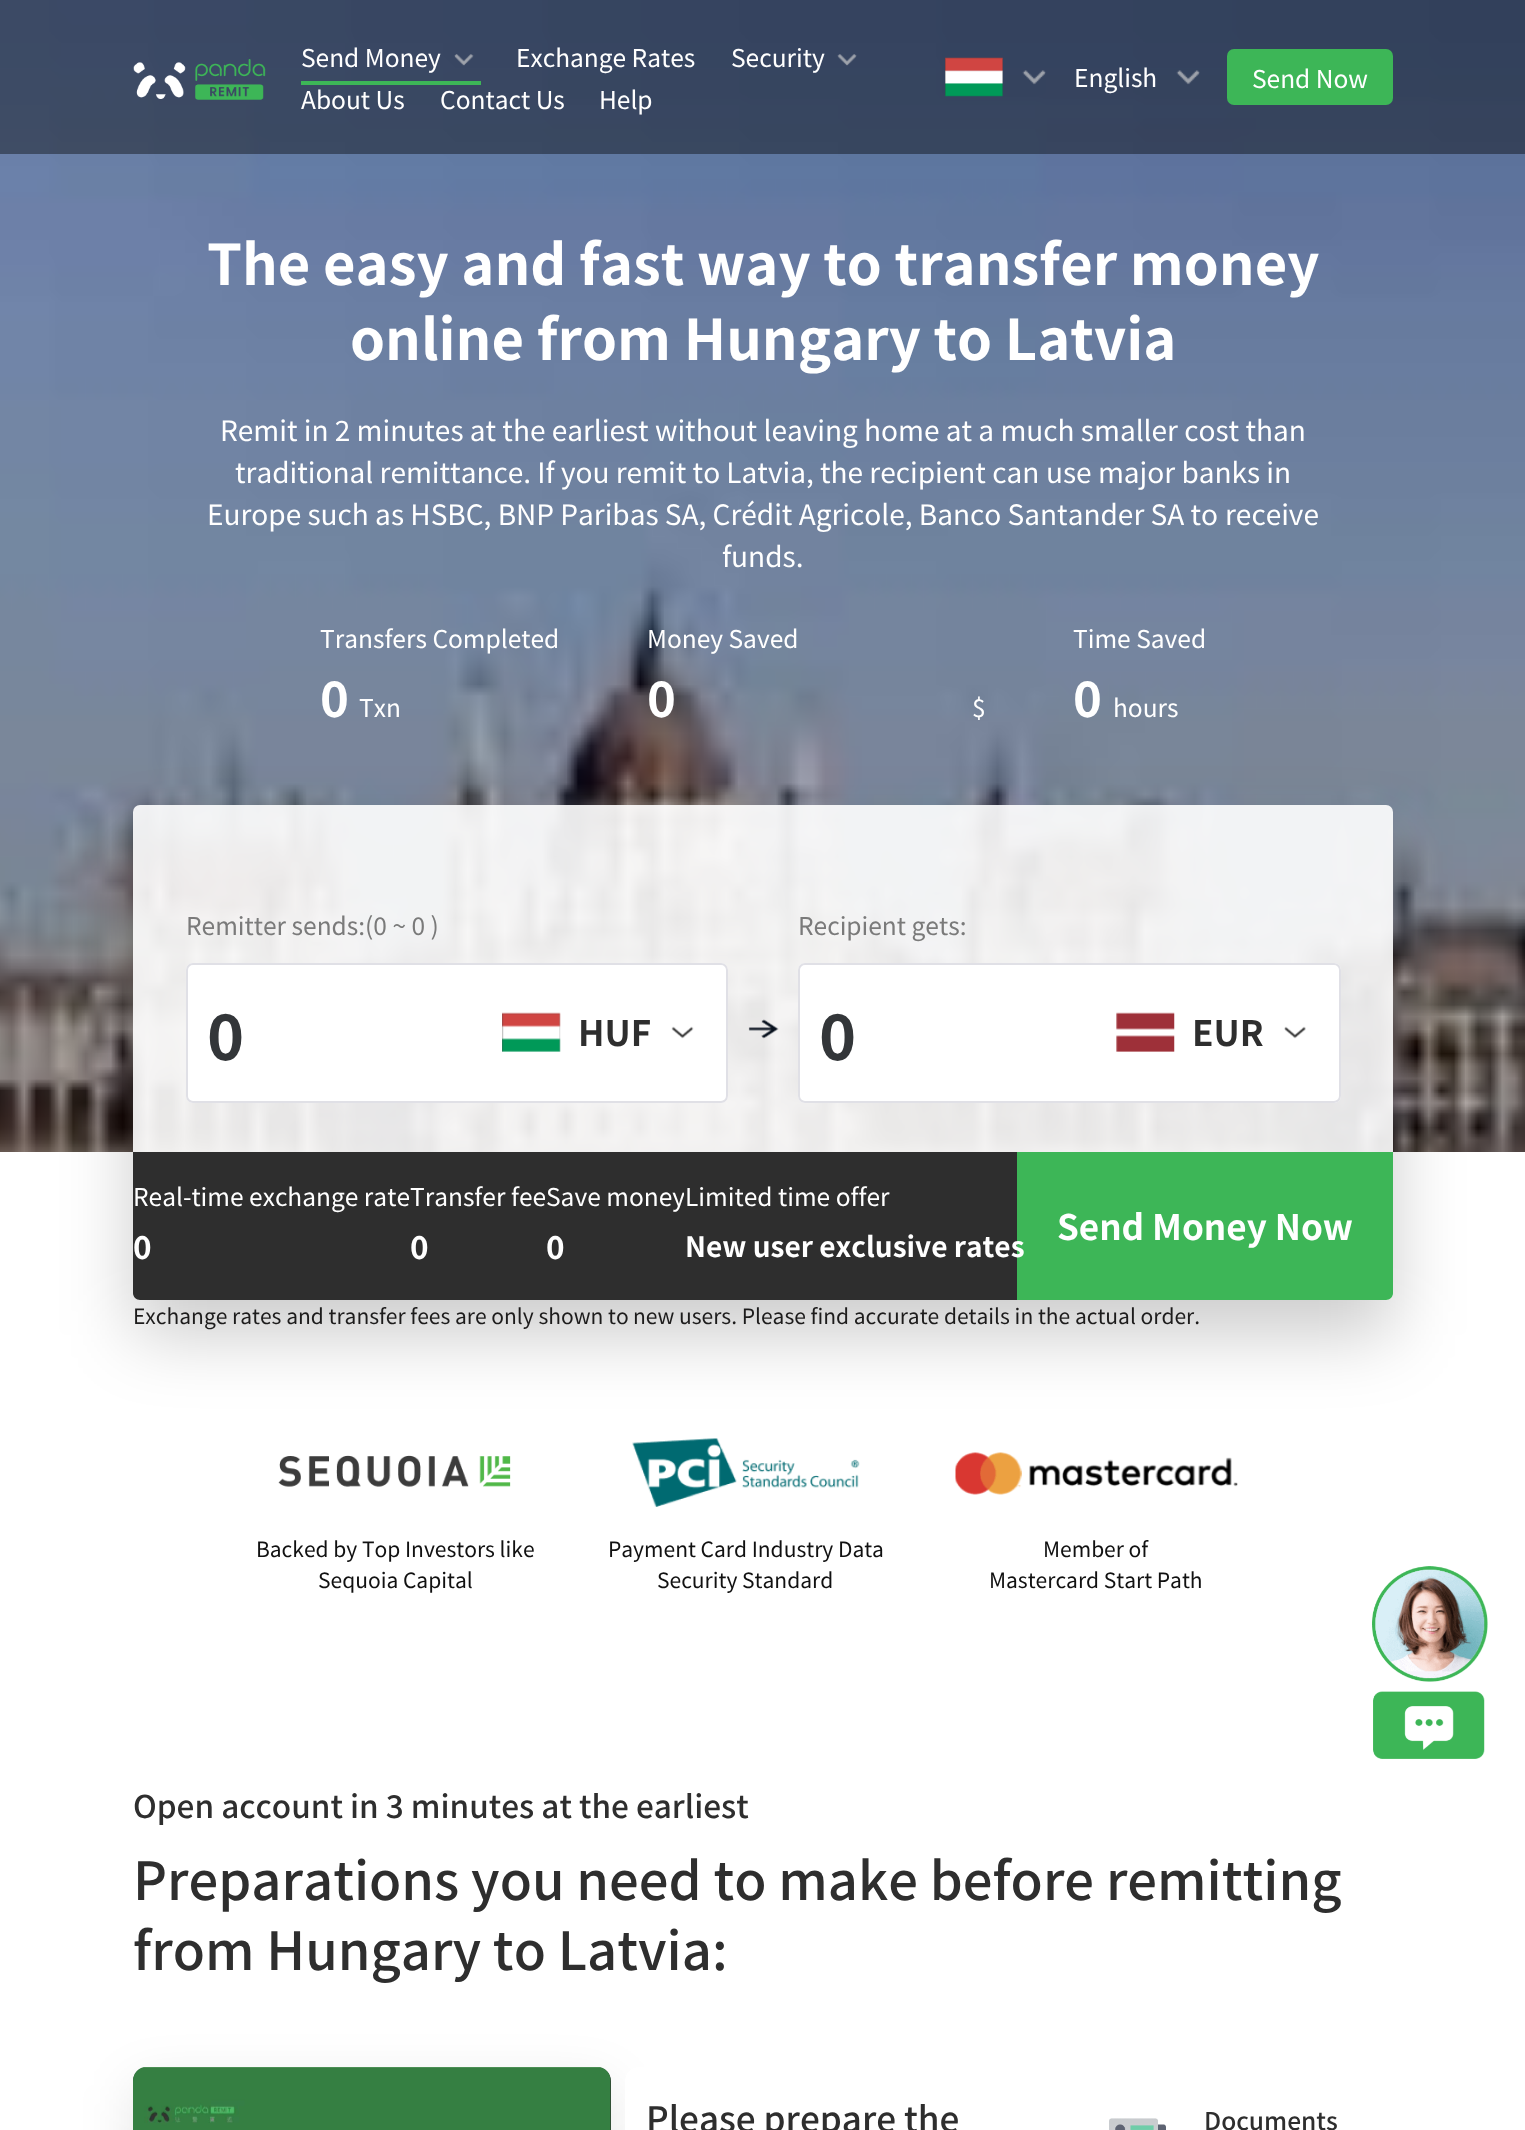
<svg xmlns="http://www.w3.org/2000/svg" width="1525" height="2130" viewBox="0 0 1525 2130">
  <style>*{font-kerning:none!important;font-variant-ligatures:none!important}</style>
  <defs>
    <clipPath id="clip1"><path d="M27 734H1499V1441H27ZM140 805H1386C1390 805 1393 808 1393 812V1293C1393 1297 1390 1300 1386 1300H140C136 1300 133 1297 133 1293V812C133 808 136 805 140 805Z" clip-rule="evenodd"/></clipPath>
    <filter id="blur1" x="-50%" y="-200%" width="200%" height="500%"><feGaussianBlur stdDeviation="35"/></filter>
    <clipPath id="clip2"><rect x="546" y="1176" width="138" height="98"/></clipPath>
    <filter id="blur2" x="-50%" y="-200%" width="200%" height="500%"><feGaussianBlur stdDeviation="26"/></filter>
  </defs>
  <rect width="100%" height="100%" fill="#ffffff"/>
  <image x="0" y="0" width="1525" height="1152" href="img1.png"/>
  <rect x="0" y="0" width="1525" height="154" fill="#000000" fill-opacity="0.4"/>
  <image x="133" y="59" width="133" height="41" href="img2.png"/>
  <text x="301" y="67" font-family="Noto Sans CJK SC" font-size="24.5" fill="#ffffff">Send Money</text>
  <image x="454" y="54" width="20" height="12" href="img3.png"/>
  <rect x="301" y="81" width="180" height="4" fill="#3db657"/>
  <text x="516" y="67" font-family="Noto Sans CJK SC" font-size="24.5" fill="#ffffff">Exchange Rates</text>
  <text x="731" y="67" font-family="Noto Sans CJK SC" font-size="24.5" fill="#ffffff">Security</text>
  <image x="837" y="54" width="20" height="12" href="img4.png"/>
  <text x="301" y="109" font-family="Noto Sans CJK SC" font-size="24.5" fill="#ffffff">About Us</text>
  <text x="440" y="109" font-family="Noto Sans CJK SC" font-size="24.5" fill="#ffffff">Contact Us</text>
  <text x="599" y="109" font-family="Noto Sans CJK SC" font-size="24.5" fill="#ffffff">Help</text>
  <image x="945" y="57" width="58" height="40" href="img5.png"/>
  <image x="1022" y="70" width="24" height="15" href="img6.png"/>
  <text x="1074" y="87" font-family="Noto Sans CJK SC" font-size="24.5" fill="#ffffff">English</text>
  <image x="1176" y="70" width="24" height="15" href="img7.png"/>
  <rect x="1227" y="49" width="166" height="56" rx="7" fill="#3db657"/>
  <text x="1252" y="88" font-family="Noto Sans CJK SC" font-size="24.5" fill="#ffffff">Send Now</text>
  <text x="207" y="285" font-family="Noto Sans CJK SC" font-size="56" font-weight="bold" fill="#ffffff">The easy and fast way to transfer money</text>
  <text x="350" y="360" font-family="Noto Sans CJK SC" font-size="56" font-weight="bold" fill="#ffffff">online from Hungary to Latvia</text>
  <text x="220" y="441" font-family="Noto Sans CJK SC" font-size="28" fill="#ffffff">Remit in 2 minutes at the earliest without leaving home at a much smaller cost than</text>
  <text x="235" y="483" font-family="Noto Sans CJK SC" font-size="28" fill="#ffffff">traditional remittance. If you remit to Latvia, the recipient can</text>
  <text x="1046" y="483" font-family="Noto Sans CJK SC" font-size="28" fill="#ffffff">use major banks in</text>
  <text x="207" y="525" font-family="Noto Sans CJK SC" font-size="28" fill="#ffffff">Europe such as HSBC, BNP Paribas SA, Crédit Agricole, Banco Santander SA to</text>
  <text x="1225" y="525" font-family="Noto Sans CJK SC" font-size="28" fill="#ffffff">receive</text>
  <text x="722" y="567" font-family="Noto Sans CJK SC" font-size="28" fill="#ffffff">funds.</text>
  <text x="320" y="648" font-family="Noto Sans CJK SC" font-size="24.5" fill="#ffffff">Transfers Completed</text>
  <text x="320" y="717" font-family="Noto Sans CJK SC" font-size="49" font-weight="bold" fill="#ffffff">0</text>
  <text x="359" y="717" font-family="Noto Sans CJK SC" font-size="24.5" fill="#ffffff">Txn</text>
  <text x="647" y="648" font-family="Noto Sans CJK SC" font-size="24.5" fill="#ffffff">Money Saved</text>
  <text x="647" y="717" font-family="Noto Sans CJK SC" font-size="49" font-weight="bold" fill="#ffffff">0</text>
  <text x="972" y="717" font-family="Noto Sans CJK SC" font-size="24.5" fill="#ffffff">$</text>
  <text x="1073" y="648" font-family="Noto Sans CJK SC" font-size="24.5" fill="#ffffff">Time Saved</text>
  <text x="1073" y="717" font-family="Noto Sans CJK SC" font-size="49" font-weight="bold" fill="#ffffff">0</text>
  <text x="1113" y="717" font-family="Noto Sans CJK SC" font-size="24.5" fill="#ffffff">hours</text>
  <g clip-path="url(#clip1)">
    <rect x="133" y="840" width="1260" height="495" rx="7" fill="#000000" fill-opacity="0.2" filter="url(#blur1)"/>
  </g>
  <rect x="133" y="805" width="1260" height="495" rx="7" fill="#ffffff" fill-opacity="0.9"/>
  <text x="186" y="935" font-family="Noto Sans CJK SC" font-size="24.5" fill="#7a7a7a">Remitter sends:(0 ~ 0 )</text>
  <rect x="186" y="963" width="542" height="140" rx="7" fill="#ffffff"/>
  <image x="502" y="1012" width="59" height="40" href="img8.png"/>
  <image x="671" y="1026" width="23" height="13" href="img9.png"/>
  <rect x="187" y="964" width="540" height="138" rx="6" fill="none" stroke="#e0e0e6" stroke-width="2"/>
  <text x="207" y="1060" font-family="Noto Sans CJK SC" font-size="63" font-weight="bold" fill="#333639">0</text>
  <text x="578" y="1046" font-family="Noto Sans CJK SC" font-size="35" font-weight="bold" fill="#2e2e2e">HUF</text>
  <image x="748" y="1019" width="31" height="20" href="img10.png"/>
  <text x="798" y="935" font-family="Noto Sans CJK SC" font-size="24.5" fill="#7a7a7a">Recipient gets:</text>
  <rect x="798" y="963" width="543" height="140" rx="7" fill="#ffffff"/>
  <image x="1116" y="1012" width="59" height="40" href="img11.png"/>
  <image x="1284" y="1026" width="22" height="13" href="img12.png"/>
  <rect x="799" y="964" width="541" height="138" rx="6" fill="none" stroke="#e0e0e6" stroke-width="2"/>
  <text x="819" y="1060" font-family="Noto Sans CJK SC" font-size="63" font-weight="bold" fill="#333639">0</text>
  <text x="1192" y="1046" font-family="Noto Sans CJK SC" font-size="35" font-weight="bold" fill="#2e2e2e">EUR</text>
  <path d="M133 1152H1017V1300H140C136 1300 133 1297 133 1293Z" fill="#2e2e2e"/>
  <text x="133" y="1206" font-family="Noto Sans CJK SC" font-size="24.5" fill="#ffffff">Real-time exchange rateTransfer</text>
  <text x="511" y="1206" font-family="Noto Sans CJK SC" font-size="24.5" fill="#ffffff">fee</text>
  <text x="133" y="1259" font-family="Noto Sans CJK SC" font-size="31.5" font-weight="bold" fill="#ffffff">0</text>
  <g clip-path="url(#clip2)">
    <text x="546" y="1206" font-family="Noto Sans CJK SC" font-size="24.5" fill="#ffffff">Save money</text>
  </g>
  <text x="546" y="1259" font-family="Noto Sans CJK SC" font-size="31.5" font-weight="bold" fill="#ffffff">0</text>
  <text x="685" y="1206" font-family="Noto Sans CJK SC" font-size="24.5" fill="#ffffff">Limited time offer</text>
  <path d="M1017 1152H1393V1293C1393 1297 1390 1300 1386 1300H1017Z" fill="#3db657"/>
  <text x="685" y="1257" font-family="Noto Sans CJK SC" font-size="28" font-weight="bold" fill="#ffffff">New user exclusive rates</text>
  <text x="410" y="1259" font-family="Noto Sans CJK SC" font-size="31.5" font-weight="bold" fill="#ffffff">0</text>
  <text x="1057" y="1240" font-family="Noto Sans CJK SC" font-size="35" font-weight="bold" fill="#ffffff">Send Money Now</text>
  <text x="133" y="1324" font-family="Noto Sans CJK SC" font-size="21" fill="#1d1c1c">Exchange rates and transfer fees are only shown to</text>
  <text x="633" y="1324" font-family="Noto Sans CJK SC" font-size="21" fill="#1d1c1c">new users. Please find accurate details in the actual order.</text>
  <image x="278" y="1455" width="233" height="32" href="img13.png"/>
  <text x="256" y="1557" font-family="Noto Sans CJK SC" font-size="21" fill="#111111">Backed by Top Investors like</text>
  <text x="318" y="1588" font-family="Noto Sans CJK SC" font-size="21" fill="#111111">Sequoia Capital</text>
  <image x="632" y="1438" width="228" height="69" href="img14.png"/>
  <text x="608" y="1557" font-family="Noto Sans CJK SC" font-size="21" fill="#111111">Payment Card Industry Data</text>
  <text x="657" y="1588" font-family="Noto Sans CJK SC" font-size="21" fill="#111111">Security Standard</text>
  <image x="955" y="1452" width="283" height="43" href="img15.png"/>
  <text x="1043" y="1557" font-family="Noto Sans CJK SC" font-size="21" fill="#111111">Member of</text>
  <text x="989" y="1588" font-family="Noto Sans CJK SC" font-size="21" fill="#111111">Mastercard Start Path</text>
  <image x="1372" y="1566" width="116" height="193" href="img16.png"/>
  <text x="133" y="1818" font-family="Noto Sans CJK SC" font-size="31.5" font-weight="500" fill="#2e2e2e">Open account in 3 minutes at the earliest</text>
  <text x="133" y="1900" font-family="Noto Sans CJK SC" font-size="52.5" font-weight="500" fill="#2e2e2e">Preparations you need to make before remitting</text>
  <text x="133" y="1970" font-family="Noto Sans CJK SC" font-size="52.5" font-weight="500" fill="#2e2e2e">from Hungary to Latvia:</text>
  <rect x="133" y="2084" width="478" height="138" rx="14" fill="#000000" fill-opacity="0.1" filter="url(#blur2)"/>
  <path d="M147 2067H597C604.5 2067 611 2073.5 611 2081V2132H133V2081C133 2073.5 139.5 2067 147 2067Z" fill="#2f2f2f"/>
  <image x="133" y="2067" width="478" height="63" href="img17.png"/>
  <path d="M639 2067H1052C1059.5 2067 1066 2073.5 1066 2081V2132H625V2081C625 2073.5 631.5 2067 639 2067Z" fill="#ffffff"/>
  <text x="646" y="2132" font-family="Noto Sans CJK SC" font-size="35" font-weight="500" fill="#2e2e2e">Please prepare the</text>
  <image x="1109" y="2118" width="57" height="12" href="img18.png"/>
  <text x="1204" y="2130" font-family="Noto Sans CJK SC" font-size="24.5" font-weight="500" fill="#2e2e2e">Documents</text>
</svg>
